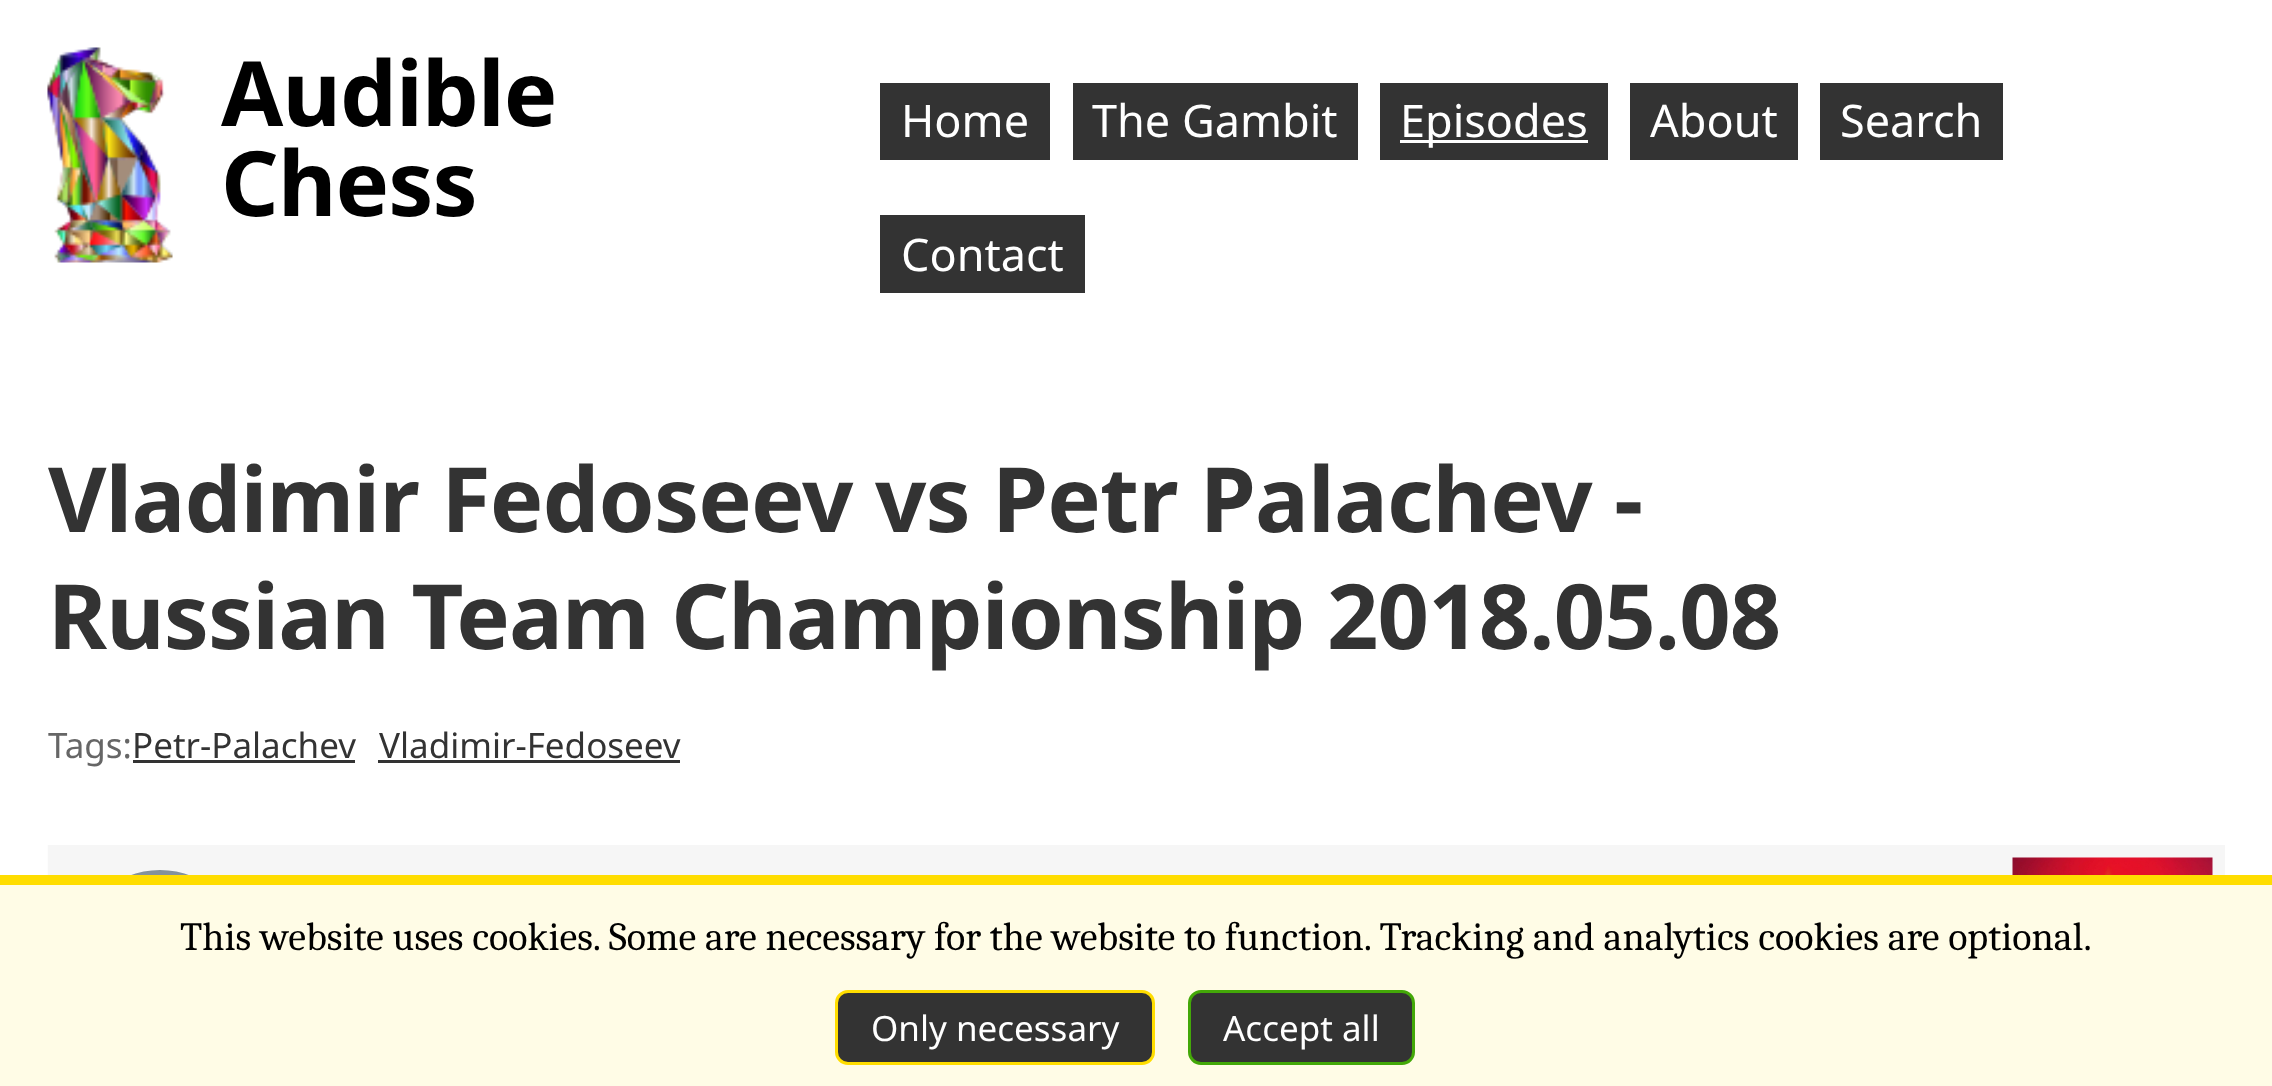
<svg xmlns="http://www.w3.org/2000/svg" width="2272" height="1086" viewBox="0 0 2272 1086">
  <rect width="100%" height="100%" fill="#ffffff"/>
  <image x="47" y="47" width="126" height="216" href="img1.png"/>
  <text x="221" y="126" font-family="Noto Sans" font-size="90" font-weight="bold" letter-spacing="-0.9" fill="#000000">Audible</text>
  <text x="221" y="216" font-family="Noto Sans" font-size="90" font-weight="bold" letter-spacing="-0.9" fill="#000000">Chess</text>
  <rect x="880" y="83" width="170" height="77" fill="#333333"/>
  <text x="901" y="137" font-family="Noto Sans" font-size="45" fill="#ffffff">Home</text>
  <rect x="1073" y="83" width="285" height="77" fill="#333333"/>
  <text x="1092" y="137" font-family="Noto Sans" font-size="45" fill="#ffffff">The Gambit</text>
  <rect x="1380" y="83" width="228" height="77" fill="#333333"/>
  <rect x="1400" y="140" width="188" height="3" fill="#ffffff"/>
  <text x="1400" y="137" font-family="Noto Sans" font-size="45" fill="#ffffff">Episodes</text>
  <rect x="1630" y="83" width="168" height="77" fill="#333333"/>
  <text x="1650" y="137" font-family="Noto Sans" font-size="45" fill="#ffffff">About</text>
  <rect x="1820" y="83" width="183" height="77" fill="#333333"/>
  <text x="1840" y="137" font-family="Noto Sans" font-size="45" fill="#ffffff">Search</text>
  <rect x="880" y="215" width="205" height="78" fill="#333333"/>
  <text x="901" y="271" font-family="Noto Sans" font-size="45" fill="#ffffff">Contact</text>
  <text x="48" y="532" font-family="Noto Sans" font-size="90" font-weight="bold" letter-spacing="-0.9" fill="#333333">Vladimir Fedoseev vs Petr Palachev -</text>
  <text x="48" y="649" font-family="Noto Sans" font-size="90" font-weight="bold" letter-spacing="-0.9" fill="#333333">Russian Team Championship 2018.05.08</text>
  <text x="48" y="758" font-family="Noto Sans" font-size="35" fill="#666666">Tags:</text>
  <text x="132" y="758" font-family="Noto Sans" font-size="35" fill="#333333">Petr-Palachev</text>
  <rect x="133" y="760" width="222" height="3" fill="#333333"/>
  <text x="379" y="758" font-family="Noto Sans" font-size="35" fill="#333333">Vladimir-Fedoseev</text>
  <rect x="378" y="760" width="302" height="3" fill="#333333"/>
  <image x="47" y="845" width="2178" height="30" href="img2.png"/>
  <rect x="0" y="885" width="2272" height="201" fill="#fffce6"/>
  <rect x="0" y="875" width="2272" height="10" fill="#ffdd00"/>
  <text x="180" y="950" font-family="Caladea" font-size="40" fill="#000000">This website uses cookies. Some are necessary for the website to function. Tracking and analytics cookies are optional.</text>
  <rect x="836.5" y="991.5" width="317" height="72" rx="11.5" fill="#333333" stroke="#ffdd00" stroke-width="3"/>
  <text x="871" y="1041" font-family="Noto Sans" font-size="35" fill="#ffffff">Only necessary</text>
  <rect x="1189.5" y="991.5" width="224" height="72" rx="11.5" fill="#333333" stroke="#43a808" stroke-width="3"/>
  <text x="1223" y="1041" font-family="Noto Sans" font-size="35" fill="#ffffff">Accept all</text>
</svg>
